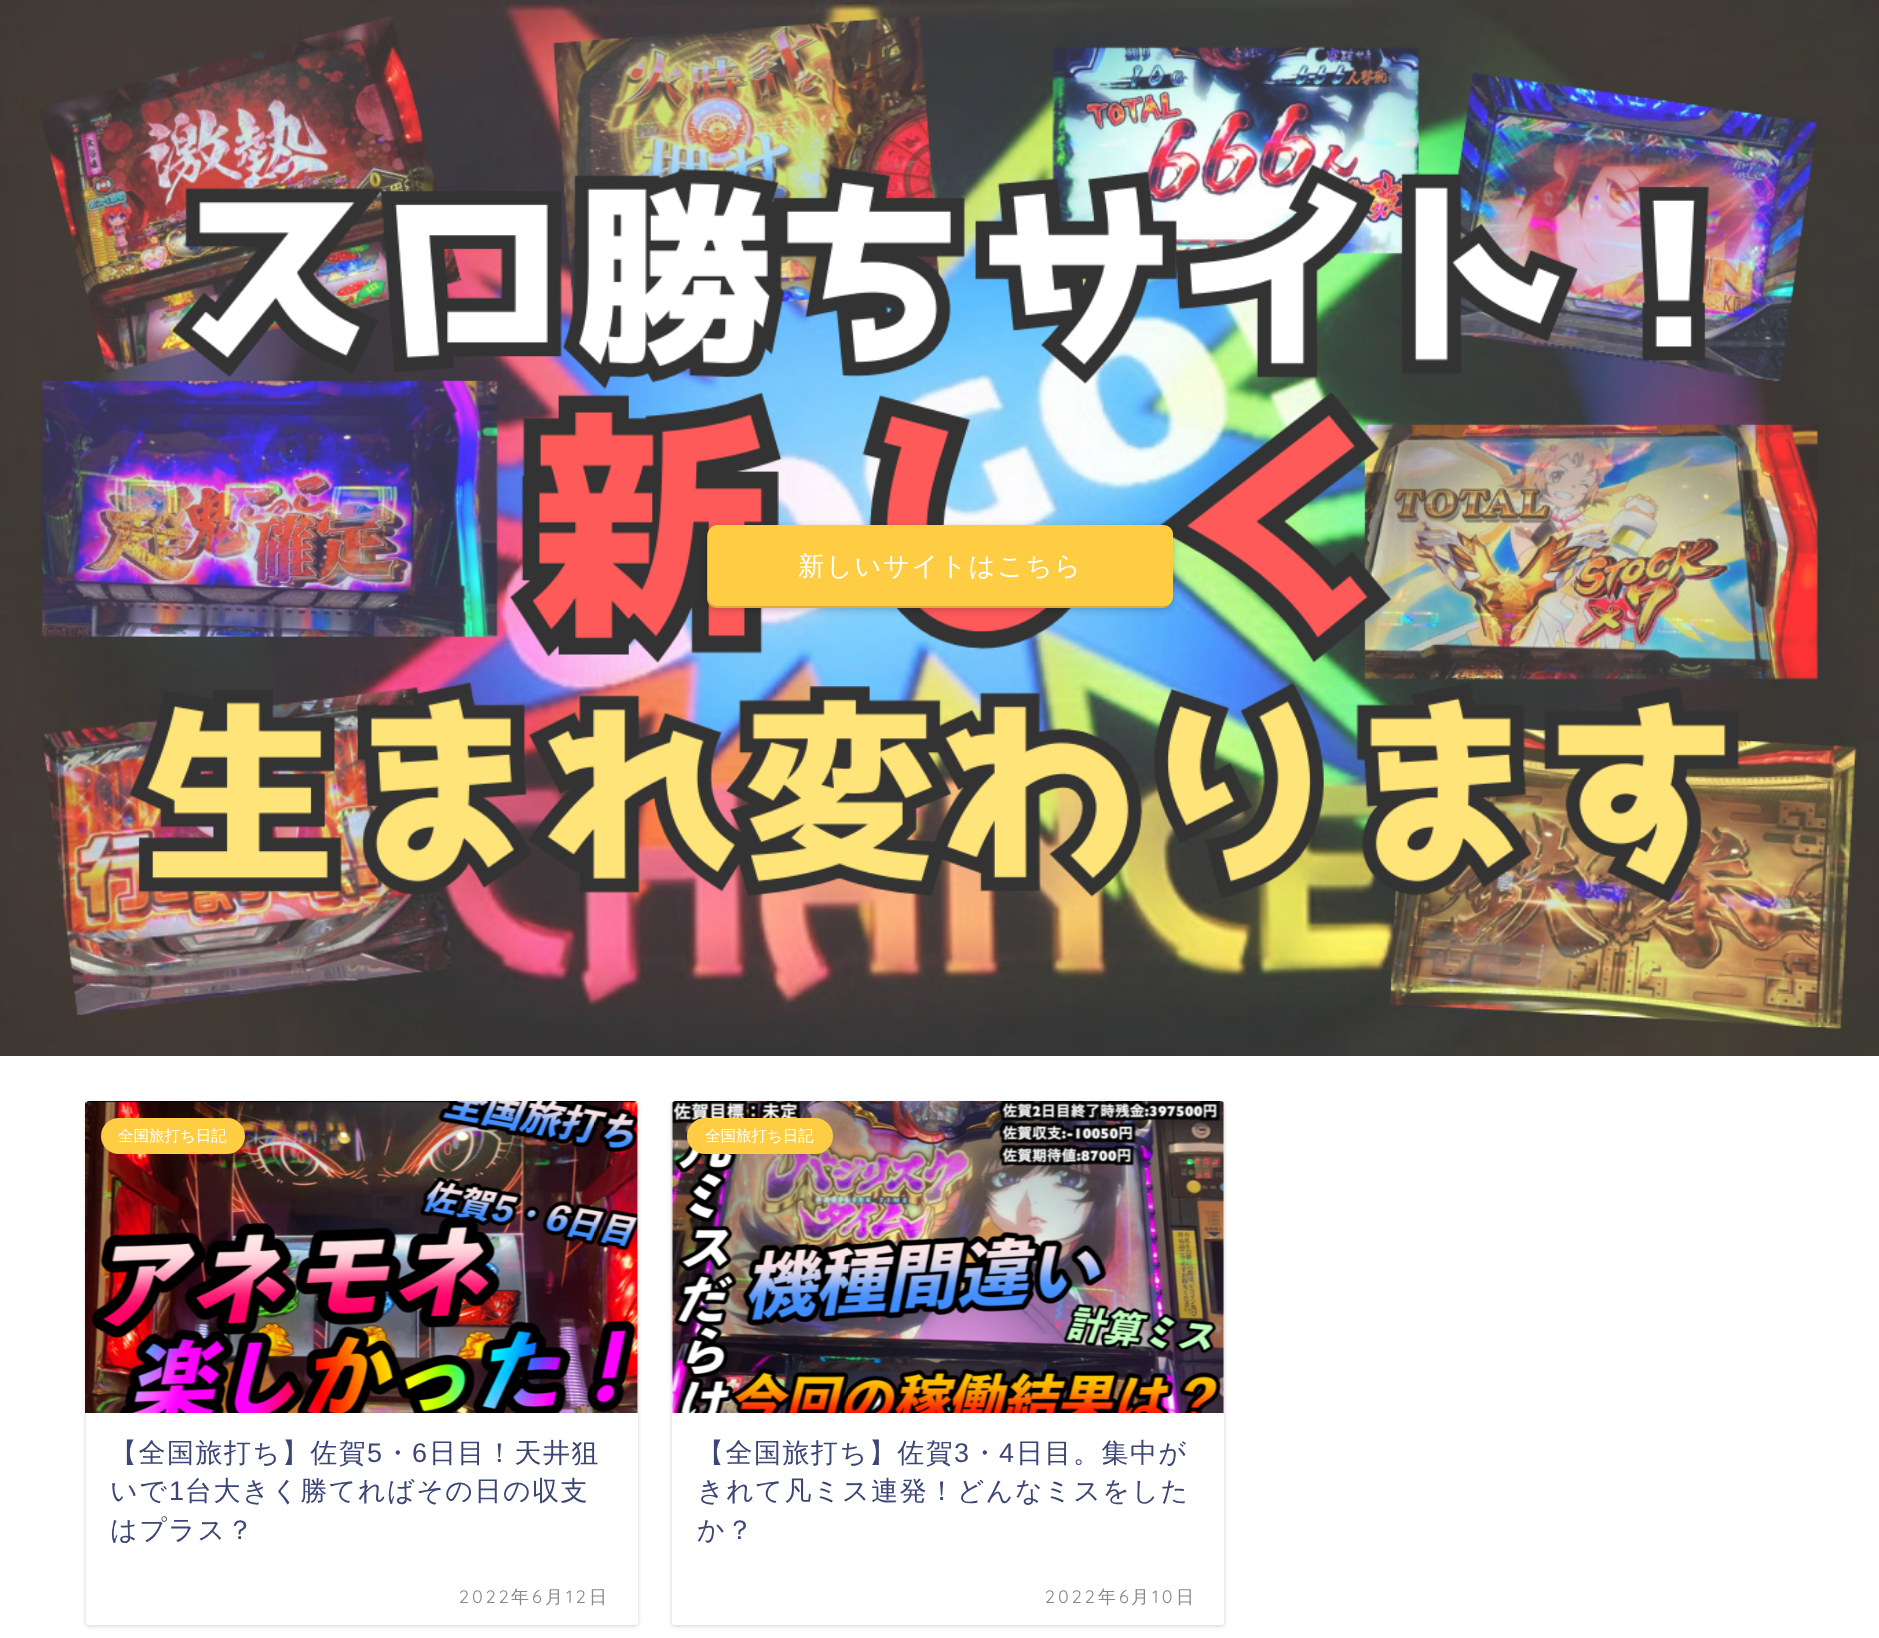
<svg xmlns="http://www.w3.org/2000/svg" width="1879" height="1638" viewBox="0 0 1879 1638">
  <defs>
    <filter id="blur1" x="-50%" y="-200%" width="200%" height="500%"><feGaussianBlur stdDeviation="4"/></filter>
    <filter id="blur2" x="-50%" y="-200%" width="200%" height="500%"><feGaussianBlur stdDeviation="2"/></filter>
  </defs>
  <rect width="100%" height="100%" fill="#ffffff"/>
  <image x="0" y="0" width="1879" height="1056" href="img1.png"/>
  <rect x="707" y="528" width="465" height="81" rx="9" fill="#000000" fill-opacity="0.25" filter="url(#blur1)"/>
  <rect x="707" y="527" width="465" height="81" rx="9" fill="#d9ae3a"/>
  <rect x="708" y="525" width="465" height="81" rx="9" fill="#ffcd44"/>
  <text x="798" y="575" font-family="WenQuanYi Zen Hei" font-size="26.4" font-weight="500" letter-spacing="1.5" fill="#ffffff">新しいサイトはこちら</text>
  <rect x="86" y="1103" width="552" height="523" rx="3" fill="#000000" fill-opacity="0.18" filter="url(#blur2)"/>
  <rect x="86" y="1101" width="552" height="524" rx="3" fill="#ffffff"/>
  <image x="85" y="1101" width="553" height="312" href="img2.png"/>
  <rect x="101" y="1118" width="144" height="36" rx="18" fill="#ffcd44"/>
  <text x="118" y="1141" font-family="WenQuanYi Zen Hei" font-size="15.5" font-weight="500" fill="#ffffff">全国旅打ち日記</text>
  <text x="110" y="1462" font-family="WenQuanYi Zen Hei" font-size="27" font-weight="500" letter-spacing="1.5" fill="#3b4675">【全国旅打ち】佐賀</text>
  <text x="367" y="1462" font-family="Liberation Sans" font-size="27" letter-spacing="1.5" fill="#3b4675">5</text>
  <text x="384" y="1462" font-family="WenQuanYi Zen Hei" font-size="27" font-weight="500" letter-spacing="1.5" fill="#3b4675">・</text>
  <text x="412" y="1462" font-family="Liberation Sans" font-size="27" letter-spacing="1.5" fill="#3b4675">6</text>
  <text x="429" y="1462" font-family="WenQuanYi Zen Hei" font-size="27" font-weight="500" letter-spacing="1.5" fill="#3b4675">日目！天井狙</text>
  <text x="110" y="1500" font-family="WenQuanYi Zen Hei" font-size="27" font-weight="500" letter-spacing="1.5" fill="#3b4675">いで</text>
  <text x="169" y="1500" font-family="Liberation Sans" font-size="27" letter-spacing="1.5" fill="#3b4675">1</text>
  <text x="185" y="1500" font-family="WenQuanYi Zen Hei" font-size="27" font-weight="500" letter-spacing="1.5" fill="#3b4675">台大きく勝てればその日の収支</text>
  <text x="110" y="1539" font-family="WenQuanYi Zen Hei" font-size="27" font-weight="500" letter-spacing="1.5" fill="#3b4675">はプラス？</text>
  <text x="459" y="1603" font-family="Quicksand" font-size="18" font-weight="300" letter-spacing="3" fill="#888888">2022</text>
  <text x="511" y="1603" font-family="WenQuanYi Zen Hei" font-size="18" font-weight="500" letter-spacing="3" fill="#888888">年</text>
  <text x="532" y="1603" font-family="Quicksand" font-size="18" font-weight="300" letter-spacing="3" fill="#888888">6</text>
  <text x="545" y="1603" font-family="WenQuanYi Zen Hei" font-size="18" font-weight="500" letter-spacing="3" fill="#888888">月</text>
  <text x="566" y="1603" font-family="Quicksand" font-size="18" font-weight="300" letter-spacing="3" fill="#888888">12</text>
  <text x="589" y="1603" font-family="WenQuanYi Zen Hei" font-size="18" font-weight="500" letter-spacing="3" fill="#888888">日</text>
  <rect x="672" y="1103" width="552" height="523" rx="3" fill="#000000" fill-opacity="0.18" filter="url(#blur2)"/>
  <rect x="672" y="1101" width="552" height="524" rx="3" fill="#ffffff"/>
  <image x="671" y="1101" width="553" height="312" href="img3.png"/>
  <rect x="687" y="1118" width="146" height="36" rx="18" fill="#ffcd44"/>
  <text x="705" y="1141" font-family="WenQuanYi Zen Hei" font-size="15.5" font-weight="500" fill="#ffffff">全国旅打ち日記</text>
  <text x="697" y="1462" font-family="WenQuanYi Zen Hei" font-size="27" font-weight="500" letter-spacing="1.5" fill="#3b4675">【全国旅打ち】佐賀</text>
  <text x="954" y="1462" font-family="Liberation Sans" font-size="27" letter-spacing="1.5" fill="#3b4675">3</text>
  <text x="971" y="1462" font-family="WenQuanYi Zen Hei" font-size="27" font-weight="500" letter-spacing="1.5" fill="#3b4675">・</text>
  <text x="999" y="1462" font-family="Liberation Sans" font-size="27" letter-spacing="1.5" fill="#3b4675">4</text>
  <text x="1016" y="1462" font-family="WenQuanYi Zen Hei" font-size="27" font-weight="500" letter-spacing="1.5" fill="#3b4675">日目。集中が</text>
  <text x="697" y="1500" font-family="WenQuanYi Zen Hei" font-size="27" font-weight="500" letter-spacing="1.5" fill="#3b4675">きれて凡ミス連発！どんなミスをした</text>
  <text x="697" y="1539" font-family="WenQuanYi Zen Hei" font-size="27" font-weight="500" letter-spacing="1.5" fill="#3b4675">か？</text>
  <text x="1045" y="1603" font-family="Quicksand" font-size="18" font-weight="300" letter-spacing="3" fill="#888888">2022</text>
  <text x="1098" y="1603" font-family="WenQuanYi Zen Hei" font-size="18" font-weight="500" letter-spacing="3" fill="#888888">年</text>
  <text x="1119" y="1603" font-family="Quicksand" font-size="18" font-weight="300" letter-spacing="3" fill="#888888">6</text>
  <text x="1131" y="1603" font-family="WenQuanYi Zen Hei" font-size="18" font-weight="500" letter-spacing="3" fill="#888888">月</text>
  <text x="1152" y="1603" font-family="Quicksand" font-size="18" font-weight="300" letter-spacing="3" fill="#888888">10</text>
  <text x="1176" y="1603" font-family="WenQuanYi Zen Hei" font-size="18" font-weight="500" letter-spacing="3" fill="#888888">日</text>
</svg>
